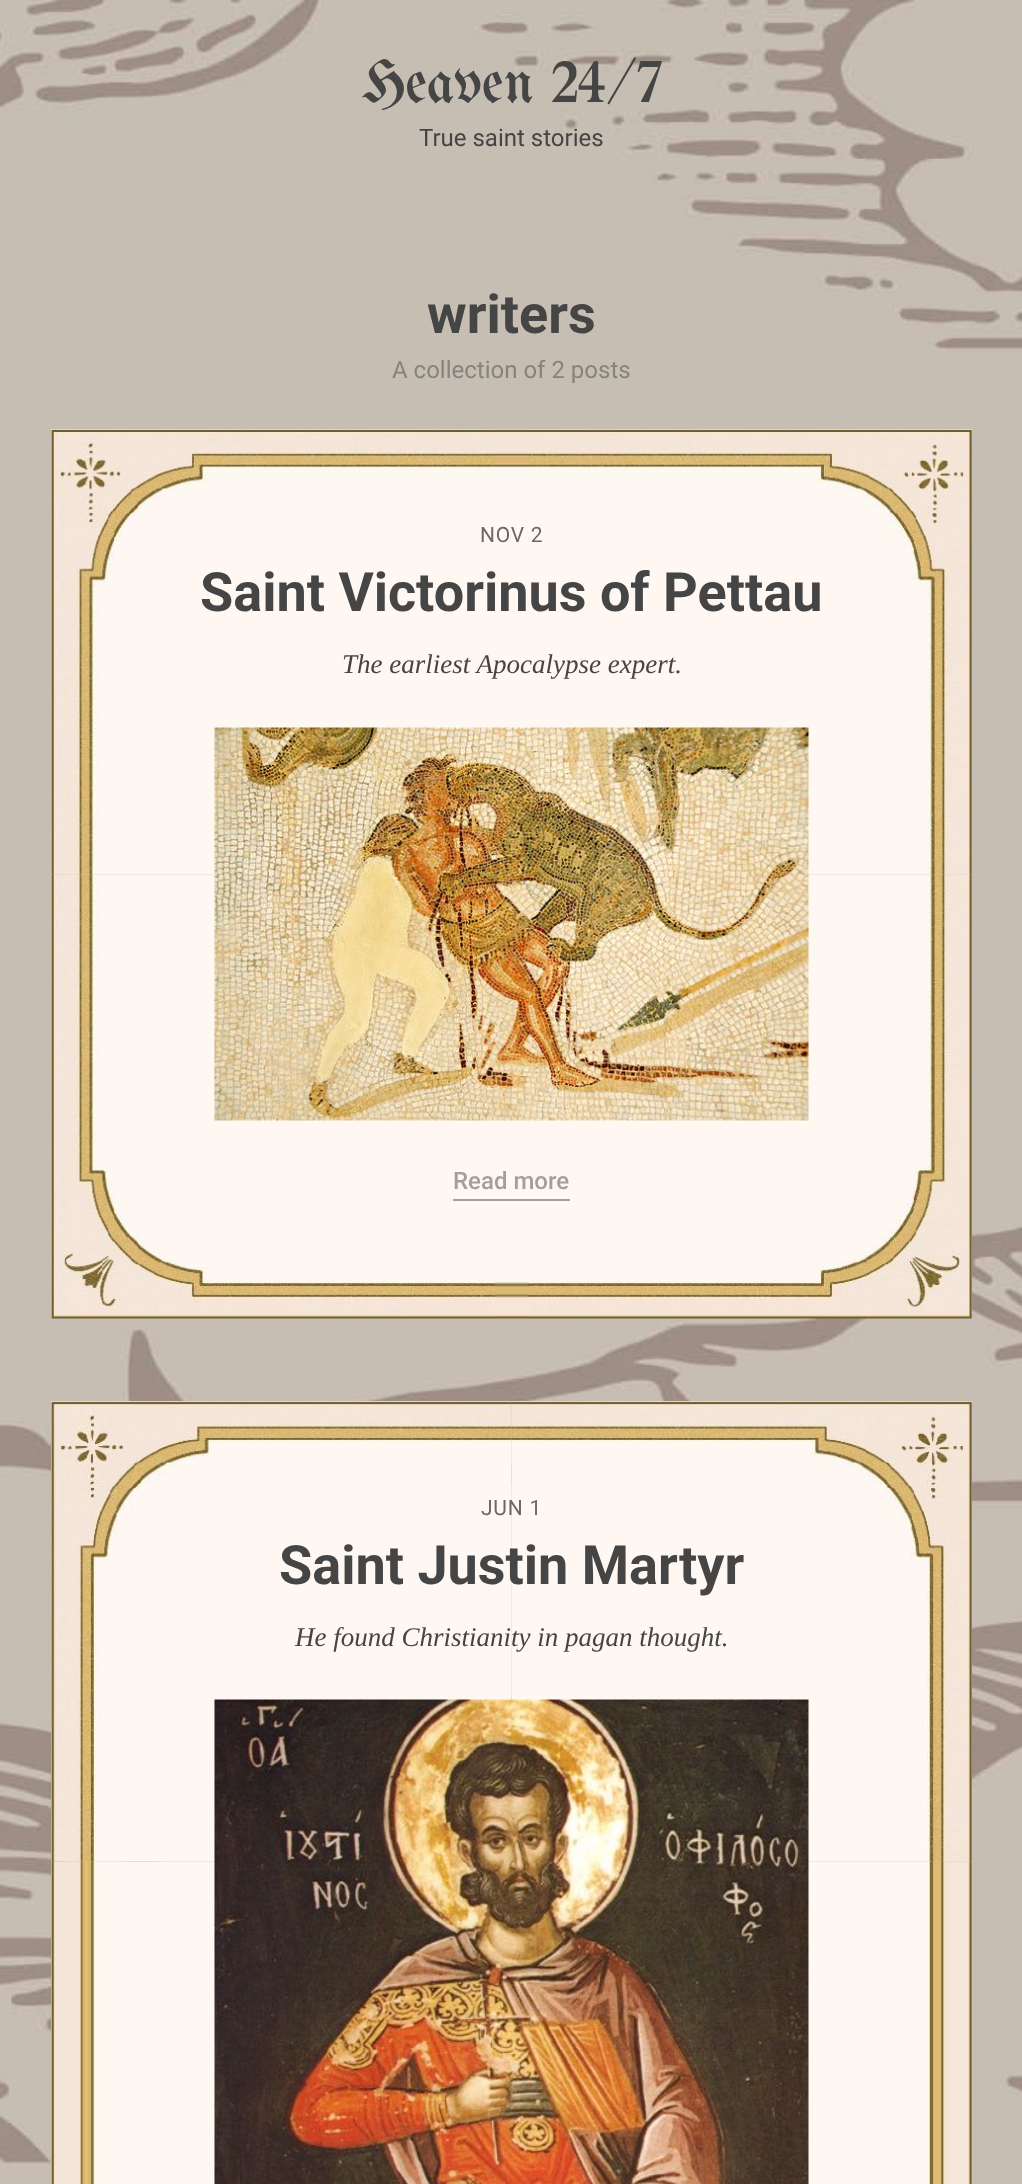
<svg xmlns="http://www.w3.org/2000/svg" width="1022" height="2184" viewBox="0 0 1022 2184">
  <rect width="100%" height="100%" fill="#c6beb3"/>
  <image x="0" y="0" width="1022" height="2171" href="img1.png"/>
  <text x="361" y="102" font-family="UnifrakturMaguntia" font-size="60" fill="#454545">Heaven 24/7</text>
  <text x="419" y="146" font-family="Roboto" font-size="24" fill="#454545">True saint stories</text>
  <text x="427" y="333" font-family="Roboto" font-size="54" font-weight="bold" fill="#454545">writers</text>
  <text x="392" y="378" font-family="Roboto" font-size="24" fill="#86827c">A collection of 2 posts</text>
  <image x="51" y="429" width="921" height="890" href="img2.png"/>
  <text x="480" y="542" font-family="Roboto" font-size="21" letter-spacing="0.75" fill="#6a6968">NOV 2</text>
  <text x="200" y="611" font-family="Roboto" font-size="54" font-weight="bold" fill="#454545">Saint Victorinus of Pettau</text>
  <text x="342" y="673" font-family="Liberation Serif" font-size="27" font-style="italic" fill="#454545">The earliest Apocalypse expert.</text>
  <image x="214" y="727" width="595" height="394" href="img3.png"/>
  <rect x="453" y="1199" width="117" height="2" fill="#a29f9c"/>
  <text x="453" y="1189" font-family="Roboto" font-size="24" font-weight="500" fill="#a29f9c">Read more</text>
  <image x="51" y="1401" width="921" height="783" href="img4.png"/>
  <text x="481" y="1515" font-family="Roboto" font-size="21" letter-spacing="0.75" fill="#6a6968">JUN 1</text>
  <text x="279" y="1584" font-family="Roboto" font-size="54" font-weight="bold" fill="#454545">Saint Justin Martyr</text>
  <text x="295" y="1646" font-family="Liberation Serif" font-size="27" font-style="italic" fill="#454545">He found Christianity in pagan thought.</text>
  <image x="214" y="1699" width="595" height="485" href="img5.png"/>
</svg>
